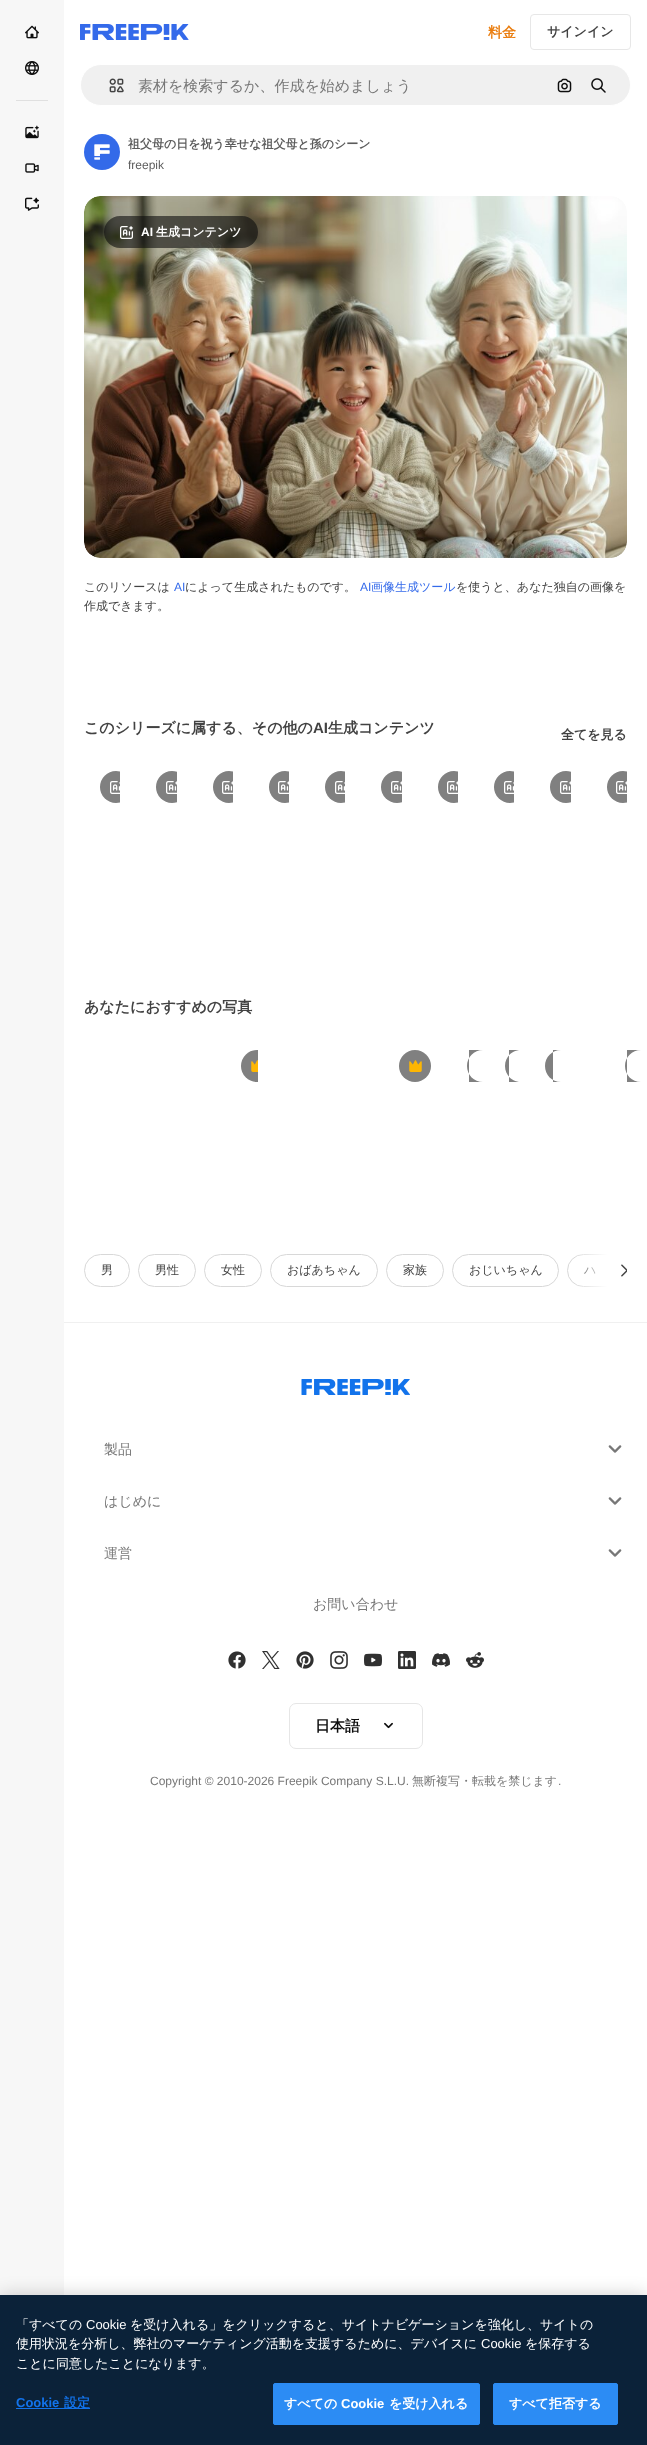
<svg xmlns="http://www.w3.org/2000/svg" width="647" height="2445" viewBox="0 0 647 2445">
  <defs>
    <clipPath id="clip1"><rect x="84" y="755" width="36" height="200" rx="16"/></clipPath>
    <clipPath id="clip2"><rect x="140" y="755" width="37" height="200" rx="16"/></clipPath>
    <clipPath id="clip3"><rect x="197" y="755" width="36" height="200" rx="16"/></clipPath>
    <clipPath id="clip4"><rect x="253" y="755" width="36" height="200" rx="16"/></clipPath>
    <clipPath id="clip5"><rect x="309" y="755" width="36" height="200" rx="16"/></clipPath>
    <clipPath id="clip6"><rect x="365" y="755" width="37" height="200" rx="16"/></clipPath>
    <clipPath id="clip7"><rect x="422" y="755" width="36" height="200" rx="16"/></clipPath>
    <clipPath id="clip8"><rect x="478" y="755" width="36" height="200" rx="16"/></clipPath>
    <clipPath id="clip9"><rect x="534" y="755" width="37" height="200" rx="16"/></clipPath>
    <clipPath id="clip10"><rect x="591" y="755" width="36" height="200" rx="16"/></clipPath>
    <clipPath id="clip11"><rect x="225" y="1034" width="33" height="200" rx="16"/></clipPath>
    <clipPath id="clip12"><rect x="84" y="1254" width="543" height="33"/></clipPath>
    <linearGradient id="g1" gradientUnits="userSpaceOnUse" x1="607" y1="1271" x2="572" y2="1271"><stop offset="0" stop-color="#ffffff"/><stop offset="1" stop-color="#ffffff" stop-opacity="0"/></linearGradient>
    <filter id="blur1" x="-50%" y="-200%" width="200%" height="500%"><feGaussianBlur stdDeviation="9"/></filter>
  </defs>
  <rect width="100%" height="100%" fill="#ffffff"/>
  <rect x="0" y="0" width="64" height="2295" fill="#f7f7f7"/>
  <image x="25" y="25" width="14" height="14" href="img1.png"/>
  <image x="25" y="61" width="14" height="14" href="img2.png"/>
  <rect x="16" y="100" width="32" height="1" fill="#e0e0e0"/>
  <image x="25" y="125" width="14" height="14" href="img3.png"/>
  <image x="25" y="163" width="14" height="10" href="img4.png"/>
  <image x="25" y="197" width="14" height="14" href="img5.png"/>
  <image x="80" y="24" width="109" height="16" href="img6.png"/>
  <text x="488" y="37" font-family="WenQuanYi Zen Hei" font-size="14" font-weight="bold" fill="#ea7e11">料金</text>
  <rect x="530.5" y="14.5" width="100" height="35" rx="3.5" fill="none" stroke="#e7e7e7"/>
  <text x="547" y="36" font-family="WenQuanYi Zen Hei" font-size="13" font-weight="bold" fill="#424242">サインイン</text>
  <rect x="80.5" y="64.5" width="550" height="41" rx="20.5" fill="#f0f0f0" stroke="#ffffff"/>
  <image x="109" y="78" width="15" height="15" href="img7.png"/>
  <text x="138" y="91" font-family="WenQuanYi Zen Hei" font-size="15" font-weight="500" fill="#777777">素材を検索するか、作成を始めましょう</text>
  <image x="557" y="78" width="15" height="15" href="img8.png"/>
  <image x="591" y="78" width="15" height="15" href="img9.png"/>
  <image x="84" y="134" width="36" height="36" href="img10.png"/>
  <text x="128" y="148" font-family="WenQuanYi Zen Hei" font-size="12" font-weight="bold" fill="#5c5c5c">祖父母の日を祝う幸せな祖父母と孫のシーン</text>
  <text x="128" y="169" font-family="Liberation Sans" font-size="12" fill="#5c5c5c">freepik</text>
  <image x="84" y="196" width="543" height="362" href="img11.png"/>
  <rect x="104" y="216" width="154" height="32" rx="16" fill="#0d0d0d" fill-opacity="0.6"/>
  <image x="120" y="226" width="13" height="13" href="img12.png"/>
  <text x="141" y="236" font-family="Liberation Sans" font-size="12" font-weight="bold" fill="#ffffff">AI</text>
  <text x="156" y="236" font-family="WenQuanYi Zen Hei" font-size="12" font-weight="bold" fill="#ffffff">生成コンテンツ</text>
  <text x="84" y="591" font-family="WenQuanYi Zen Hei" font-size="12" font-weight="500" fill="#424242">このリソースは</text>
  <text x="174" y="591" font-family="Liberation Sans" font-size="12" fill="#346aea">AI</text>
  <text x="185" y="591" font-family="WenQuanYi Zen Hei" font-size="12" font-weight="500" fill="#424242">によって生成されたものです。</text>
  <text x="360" y="591" font-family="Liberation Sans" font-size="12" fill="#346aea">AI</text>
  <text x="371" y="591" font-family="WenQuanYi Zen Hei" font-size="12" font-weight="500" fill="#346aea">画像生成ツール</text>
  <text x="456" y="591" font-family="WenQuanYi Zen Hei" font-size="12" font-weight="500" fill="#424242">を使うと、あなた独自の画像を</text>
  <text x="84" y="610" font-family="WenQuanYi Zen Hei" font-size="12" font-weight="500" fill="#424242">作成できます。</text>
  <text x="84" y="733" font-family="WenQuanYi Zen Hei" font-size="15" font-weight="bold" fill="#424242">このシリーズに属する、その他の</text>
  <text x="313" y="733" font-family="Liberation Sans" font-size="15" font-weight="bold" fill="#424242">AI</text>
  <text x="328" y="733" font-family="WenQuanYi Zen Hei" font-size="15" font-weight="bold" fill="#424242">生成コンテンツ</text>
  <text x="561" y="739" font-family="WenQuanYi Zen Hei" font-size="13" font-weight="bold" fill="#424242">全てを見る</text>
  <g clip-path="url(#clip1)">
    <circle cx="116" cy="787" r="16" fill="#808080"/>
  </g>
  <image x="110" y="781" width="10" height="13" href="img13.png"/>
  <g clip-path="url(#clip2)">
    <circle cx="172" cy="787" r="16" fill="#808080"/>
  </g>
  <image x="166" y="781" width="11" height="13" href="img14.png"/>
  <g clip-path="url(#clip3)">
    <circle cx="229" cy="787" r="16" fill="#808080"/>
  </g>
  <image x="222" y="781" width="11" height="13" href="img14.png"/>
  <g clip-path="url(#clip4)">
    <circle cx="285" cy="787" r="16" fill="#808080"/>
  </g>
  <image x="278" y="781" width="11" height="13" href="img14.png"/>
  <g clip-path="url(#clip5)">
    <circle cx="341" cy="787" r="16" fill="#808080"/>
  </g>
  <image x="335" y="781" width="10" height="13" href="img13.png"/>
  <g clip-path="url(#clip6)">
    <circle cx="397" cy="787" r="16" fill="#808080"/>
  </g>
  <image x="391" y="781" width="11" height="13" href="img14.png"/>
  <g clip-path="url(#clip7)">
    <circle cx="454" cy="787" r="16" fill="#808080"/>
  </g>
  <image x="447" y="781" width="11" height="13" href="img14.png"/>
  <g clip-path="url(#clip8)">
    <circle cx="510" cy="787" r="16" fill="#808080"/>
  </g>
  <image x="504" y="781" width="10" height="13" href="img13.png"/>
  <g clip-path="url(#clip9)">
    <circle cx="566" cy="787" r="16" fill="#808080"/>
  </g>
  <image x="560" y="781" width="11" height="13" href="img14.png"/>
  <g clip-path="url(#clip10)">
    <circle cx="623" cy="787" r="16" fill="#808080"/>
  </g>
  <image x="616" y="781" width="11" height="13" href="img14.png"/>
  <text x="84" y="1012" font-family="WenQuanYi Zen Hei" font-size="15" font-weight="bold" fill="#424242">あなたにおすすめの写真</text>
  <g clip-path="url(#clip11)">
    <circle cx="257" cy="1066" r="16" fill="#808080"/>
  </g>
  <image x="251" y="1060" width="7" height="12" href="img15.png"/>
  <circle cx="415" cy="1066" r="16" fill="#808080"/>
  <image x="409" y="1060" width="13" height="12" href="img16.png"/>
  <path d="M483 1050H469V1082H483C474 1082 467 1075 467 1066C467 1057 474 1050 483 1050Z" fill="#808080"/>
  <path d="M521 1050H509V1082H521C512 1082 505 1075 505 1066C505 1057 512 1050 521 1050Z" fill="#808080"/>
  <path d="M561 1050H553V1082H561C552 1082 545 1075 545 1066C545 1057 552 1050 561 1050Z" fill="#808080"/>
  <path d="M641 1050H627V1082H641C632 1082 625 1075 625 1066C625 1057 632 1050 641 1050Z" fill="#808080"/>
  <rect x="84.5" y="1254.5" width="45" height="32" rx="16" fill="none" stroke="#d8d8d8"/>
  <text x="101" y="1274" font-family="WenQuanYi Zen Hei" font-size="12" font-weight="500" fill="#424242">男</text>
  <rect x="138.5" y="1254.5" width="57" height="32" rx="16" fill="none" stroke="#d8d8d8"/>
  <text x="155" y="1274" font-family="WenQuanYi Zen Hei" font-size="12" font-weight="500" fill="#424242">男性</text>
  <rect x="204.5" y="1254.5" width="57" height="32" rx="16" fill="none" stroke="#d8d8d8"/>
  <text x="221" y="1274" font-family="WenQuanYi Zen Hei" font-size="12" font-weight="500" fill="#424242">女性</text>
  <rect x="270.5" y="1254.5" width="107" height="32" rx="16" fill="none" stroke="#d8d8d8"/>
  <text x="287" y="1274" font-family="WenQuanYi Zen Hei" font-size="12" font-weight="500" fill="#424242">おばあちゃん</text>
  <rect x="386.5" y="1254.5" width="57" height="32" rx="16" fill="none" stroke="#d8d8d8"/>
  <text x="403" y="1274" font-family="WenQuanYi Zen Hei" font-size="12" font-weight="500" fill="#424242">家族</text>
  <rect x="452.5" y="1254.5" width="106" height="32" rx="16" fill="none" stroke="#d8d8d8"/>
  <text x="469" y="1274" font-family="WenQuanYi Zen Hei" font-size="12" font-weight="500" fill="#424242">おじいちゃん</text>
  <g clip-path="url(#clip12)">
    <rect x="567.5" y="1254.5" width="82" height="32" rx="16" fill="none" stroke="#d8d8d8"/>
  </g>
  <text x="584" y="1274" font-family="WenQuanYi Zen Hei" font-size="12" font-weight="500" fill="#424242">ハ</text>
  <rect x="607" y="1254" width="20" height="33" fill="#ffffff"/>
  <rect x="575" y="1254" width="32" height="33" fill="url(#g1)"/>
  <image x="621" y="1264" width="6" height="13" href="img17.png"/>
  <rect x="64" y="1322" width="583" height="1" fill="#f0f0f0"/>
  <image x="301" y="1379" width="109" height="16" href="img18.png"/>
  <text x="104" y="1454" font-family="WenQuanYi Zen Hei" font-size="14" font-weight="500" fill="#777777">製品</text>
  <image x="608" y="1445" width="14" height="8" href="img19.png"/>
  <text x="104" y="1506" font-family="WenQuanYi Zen Hei" font-size="14" font-weight="500" fill="#777777">はじめに</text>
  <image x="608" y="1497" width="14" height="8" href="img19.png"/>
  <text x="104" y="1558" font-family="WenQuanYi Zen Hei" font-size="14" font-weight="500" fill="#777777">運営</text>
  <image x="608" y="1549" width="14" height="8" href="img19.png"/>
  <text x="313" y="1609" font-family="WenQuanYi Zen Hei" font-size="14" font-weight="500" fill="#777777">お問い合わせ</text>
  <image x="228" y="1651" width="18" height="18" href="img20.png"/>
  <image x="262" y="1651" width="18" height="18" href="img21.png"/>
  <image x="296" y="1651" width="18" height="18" href="img22.png"/>
  <image x="330" y="1651" width="18" height="18" href="img23.png"/>
  <image x="364" y="1653" width="18" height="14" href="img24.png"/>
  <image x="398" y="1651" width="18" height="18" href="img25.png"/>
  <image x="432" y="1653" width="18" height="14" href="img26.png"/>
  <image x="466" y="1652" width="18" height="16" href="img27.png"/>
  <rect x="289.5" y="1703.5" width="133" height="45" rx="6.5" fill="none" stroke="#e6e6e6"/>
  <text x="315" y="1731" font-family="WenQuanYi Zen Hei" font-size="15" font-weight="bold" fill="#0d0d0d">日本語</text>
  <image x="384" y="1722" width="9" height="7" href="img28.png"/>
  <text x="150" y="1785" font-family="Liberation Sans" font-size="12" fill="#777777">Copyright © 2010-2026 Freepik Company S.L.U.</text>
  <text x="412" y="1785" font-family="WenQuanYi Zen Hei" font-size="12" font-weight="500" fill="#777777">無断複写・転載を禁じます</text>
  <text x="558" y="1785" font-family="Liberation Sans" font-size="12" fill="#777777">.</text>
  <rect x="0" y="2295" width="647" height="150" fill="#000000" fill-opacity="0.2" filter="url(#blur1)"/>
  <rect x="0" y="2295" width="647" height="150" fill="#0b2239"/>
  <text x="16" y="2329" font-family="WenQuanYi Zen Hei" font-size="13" font-weight="500" fill="#ffffff">「すべての</text>
  <text x="86" y="2329" font-family="Liberation Sans" font-size="13" fill="#ffffff">Cookie</text>
  <text x="130" y="2329" font-family="WenQuanYi Zen Hei" font-size="13" font-weight="500" fill="#ffffff">を受け入れる」をクリックすると、サイトナビゲーションを強化し、サイトの</text>
  <text x="16" y="2348" font-family="WenQuanYi Zen Hei" font-size="13" font-weight="500" fill="#ffffff">使用状況を分析し、弊社のマーケティング活動を支援するために、デバイスに</text>
  <text x="481" y="2348" font-family="Liberation Sans" font-size="13" fill="#ffffff">Cookie</text>
  <text x="525" y="2348" font-family="WenQuanYi Zen Hei" font-size="13" font-weight="500" fill="#ffffff">を保存する</text>
  <text x="16" y="2368" font-family="WenQuanYi Zen Hei" font-size="13" font-weight="500" fill="#ffffff">ことに同意したことになります。</text>
  <text x="16" y="2407" font-family="Liberation Sans" font-size="13" font-weight="bold" fill="#1273eb">Cookie</text>
  <rect x="16" y="2408" width="74" height="1" fill="#1273eb"/>
  <text x="64" y="2407" font-family="WenQuanYi Zen Hei" font-size="13" font-weight="bold" fill="#1273eb">設定</text>
  <rect x="273.5" y="2383.5" width="206" height="41" rx="1.5" fill="#2c8cf4" stroke="#2c8cf4"/>
  <text x="284" y="2408" font-family="WenQuanYi Zen Hei" font-size="13" font-weight="bold" fill="#ffffff">すべての</text>
  <text x="341" y="2408" font-family="Liberation Sans" font-size="13" font-weight="bold" fill="#ffffff">Cookie</text>
  <text x="389" y="2408" font-family="WenQuanYi Zen Hei" font-size="13" font-weight="bold" fill="#ffffff">を受け入れる</text>
  <rect x="493.5" y="2383.5" width="124" height="41" rx="1.5" fill="#2c8cf4" stroke="#2c8cf4"/>
  <text x="509" y="2408" font-family="WenQuanYi Zen Hei" font-size="13" font-weight="bold" fill="#ffffff">すべて拒否する</text>
</svg>
